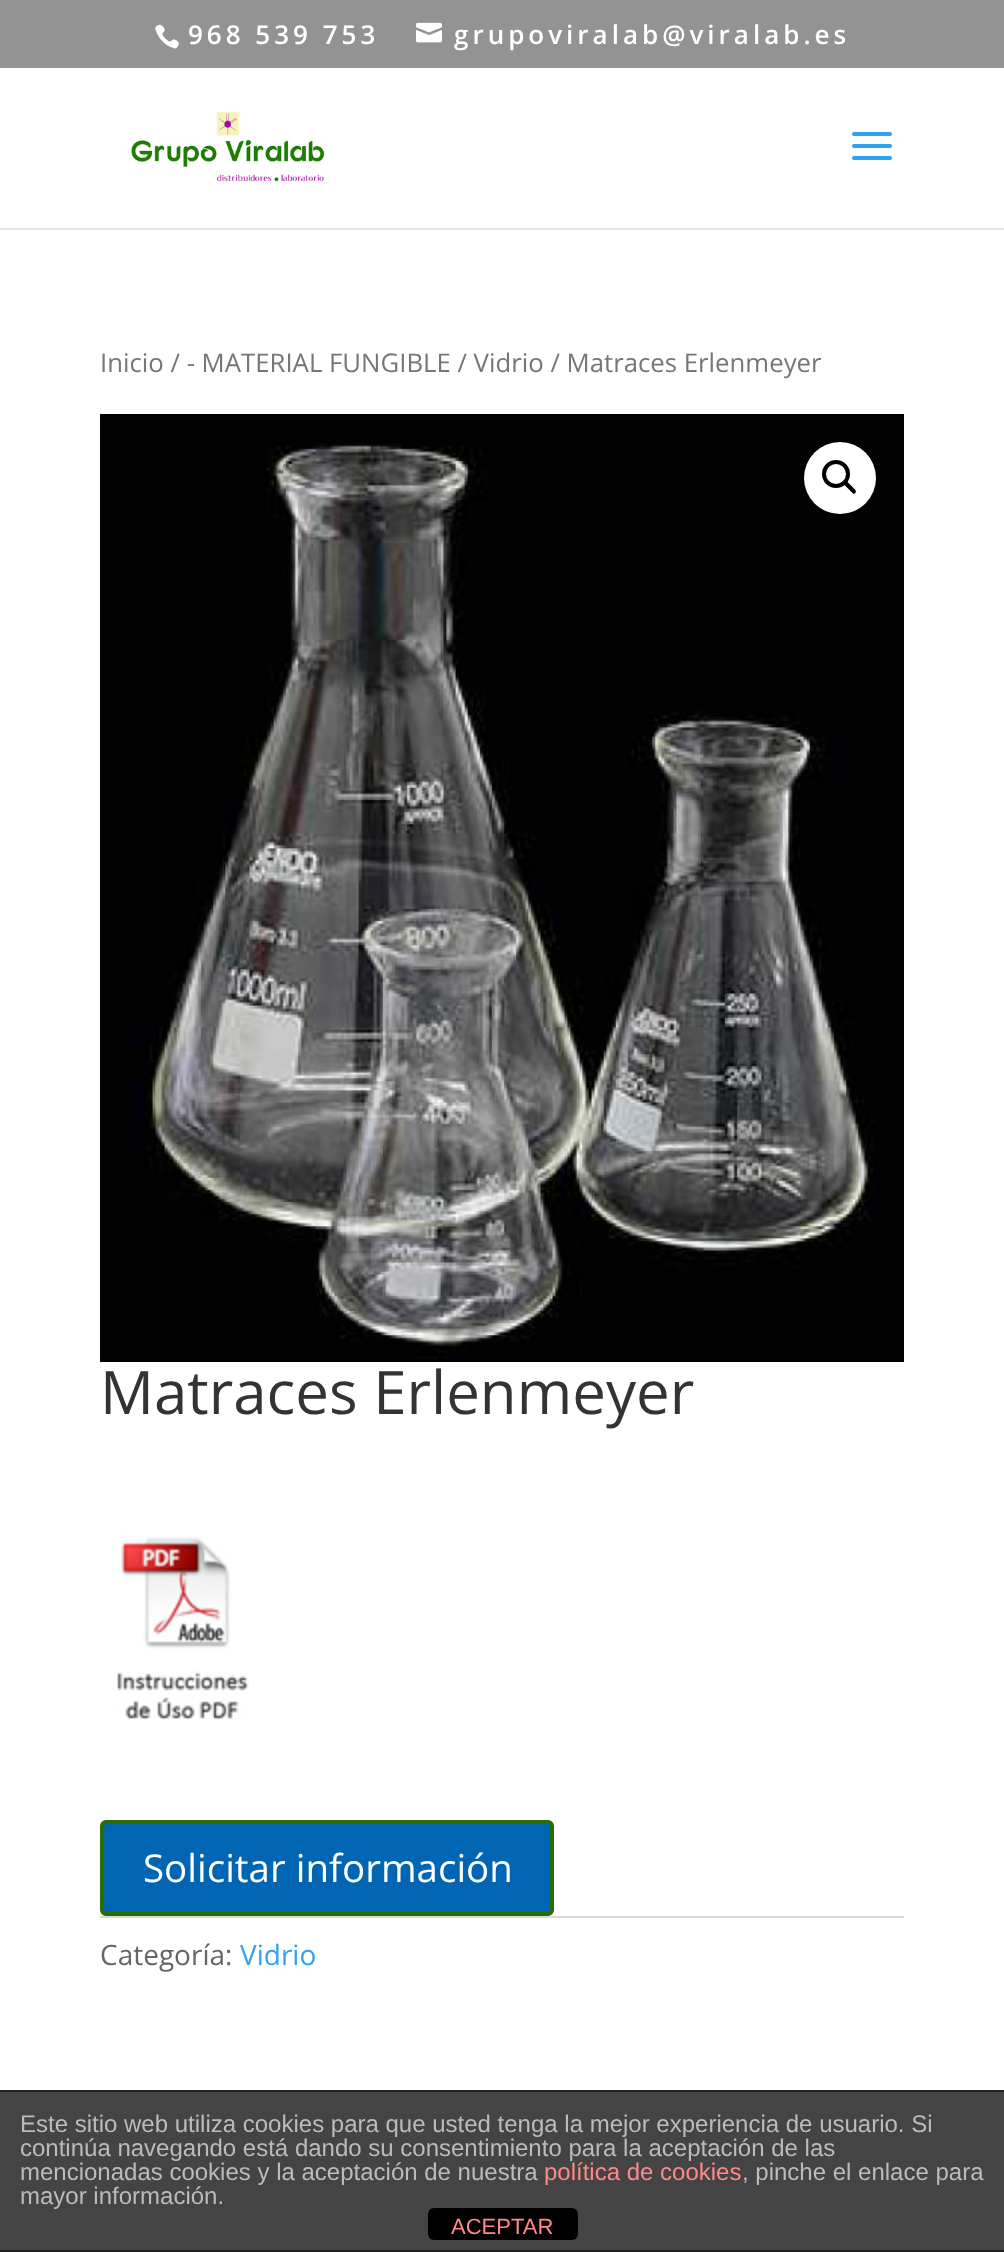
<svg xmlns="http://www.w3.org/2000/svg" width="1004" height="2252" viewBox="0 0 1004 2252">
  <rect width="100%" height="100%" fill="#ffffff"/>
  <rect x="0" y="0" width="1004" height="68" fill="#939393"/>
  <image x="155" y="24" width="24" height="25" href="img1.png"/>
  <text x="188" y="44" font-family="Open Sans" font-size="26" font-weight="600" letter-spacing="4" fill="#ffffff">968 539 753</text>
  <image x="416" y="22" width="26" height="21" href="img2.png"/>
  <text x="454" y="44" font-family="Open Sans" font-size="26" font-weight="600" letter-spacing="4" fill="#ffffff">grupoviralab@viralab.es</text>
  <rect x="0" y="228" width="1004" height="2" fill="#e6e6e6"/>
  <image x="131" y="111" width="194" height="72" href="img3.png"/>
  <image x="852" y="132" width="40" height="28" href="img4.png"/>
  <text x="100" y="372" font-family="Open Sans" font-size="25.75" fill="#767676">Inicio / - MATERIAL FUNGIBLE / Vidrio / Matraces Erlenmeyer</text>
  <image x="100" y="414" width="804" height="948" href="img5.png"/>
  <circle cx="840" cy="478" r="36" fill="#ffffff"/>
  <circle cx="836" cy="474" r="12" fill="none" stroke="#000000" stroke-width="4"/>
  <path d="M844 481.5C844.5 481 846 481 847 481.5L855.5 490C856 491 856 492 855.5 493C854.5 494 853 494 852.5 493L844 484.5C843 483.5 843 482.5 844 481.5Z" fill="#000000"/>
  <text x="100" y="1414" font-family="Open Sans" font-size="60" fill="#333333">Matraces Erlenmeyer</text>
  <image x="117" y="1537" width="132" height="183" href="img6.png"/>
  <rect x="102" y="1822" width="450" height="92" rx="4" fill="#0066b4" stroke="#296d04" stroke-width="4"/>
  <text x="143" y="1882" font-family="Open Sans" font-size="38.5" fill="#ffffff">Solicitar información</text>
  <rect x="100" y="1916" width="804" height="2" fill="#dadada"/>
  <text x="100" y="1965" font-family="Open Sans" font-size="28" fill="#666666">Categoría:</text>
  <text x="240" y="1965" font-family="Open Sans" font-size="28" fill="#2ea3f2">Vidrio</text>
  <rect x="0" y="2092" width="1004" height="158" fill="#444444"/>
  <rect x="0" y="2090" width="1004" height="2" fill="#222222"/>
  <rect x="0" y="2250" width="1004" height="2" fill="#222222"/>
  <text x="20" y="2132" font-family="Liberation Sans" font-size="24" fill="#bbbbbb">Este sitio web utiliza cookies para que usted tenga la mejor experiencia de usuario. Si</text>
  <text x="20" y="2156" font-family="Liberation Sans" font-size="24" fill="#bbbbbb">continúa navegando está dando su consentimiento para la aceptación de las</text>
  <text x="20" y="2180" font-family="Liberation Sans" font-size="24" fill="#bbbbbb">mencionadas cookies y la aceptación de nuestra</text>
  <text x="544" y="2180" font-family="Liberation Sans" font-size="24" fill="#ff8888">política de cookies</text>
  <text x="742" y="2180" font-family="Liberation Sans" font-size="24" fill="#bbbbbb">, pinche el enlace para</text>
  <text x="20" y="2204" font-family="Liberation Sans" font-size="24" fill="#bbbbbb">mayor información.</text>
  <rect x="428" y="2208" width="150" height="32" rx="6" fill="#000000"/>
  <text x="451" y="2234" font-family="Liberation Sans" font-size="22" fill="#ff8888">ACEPTAR</text>
</svg>
